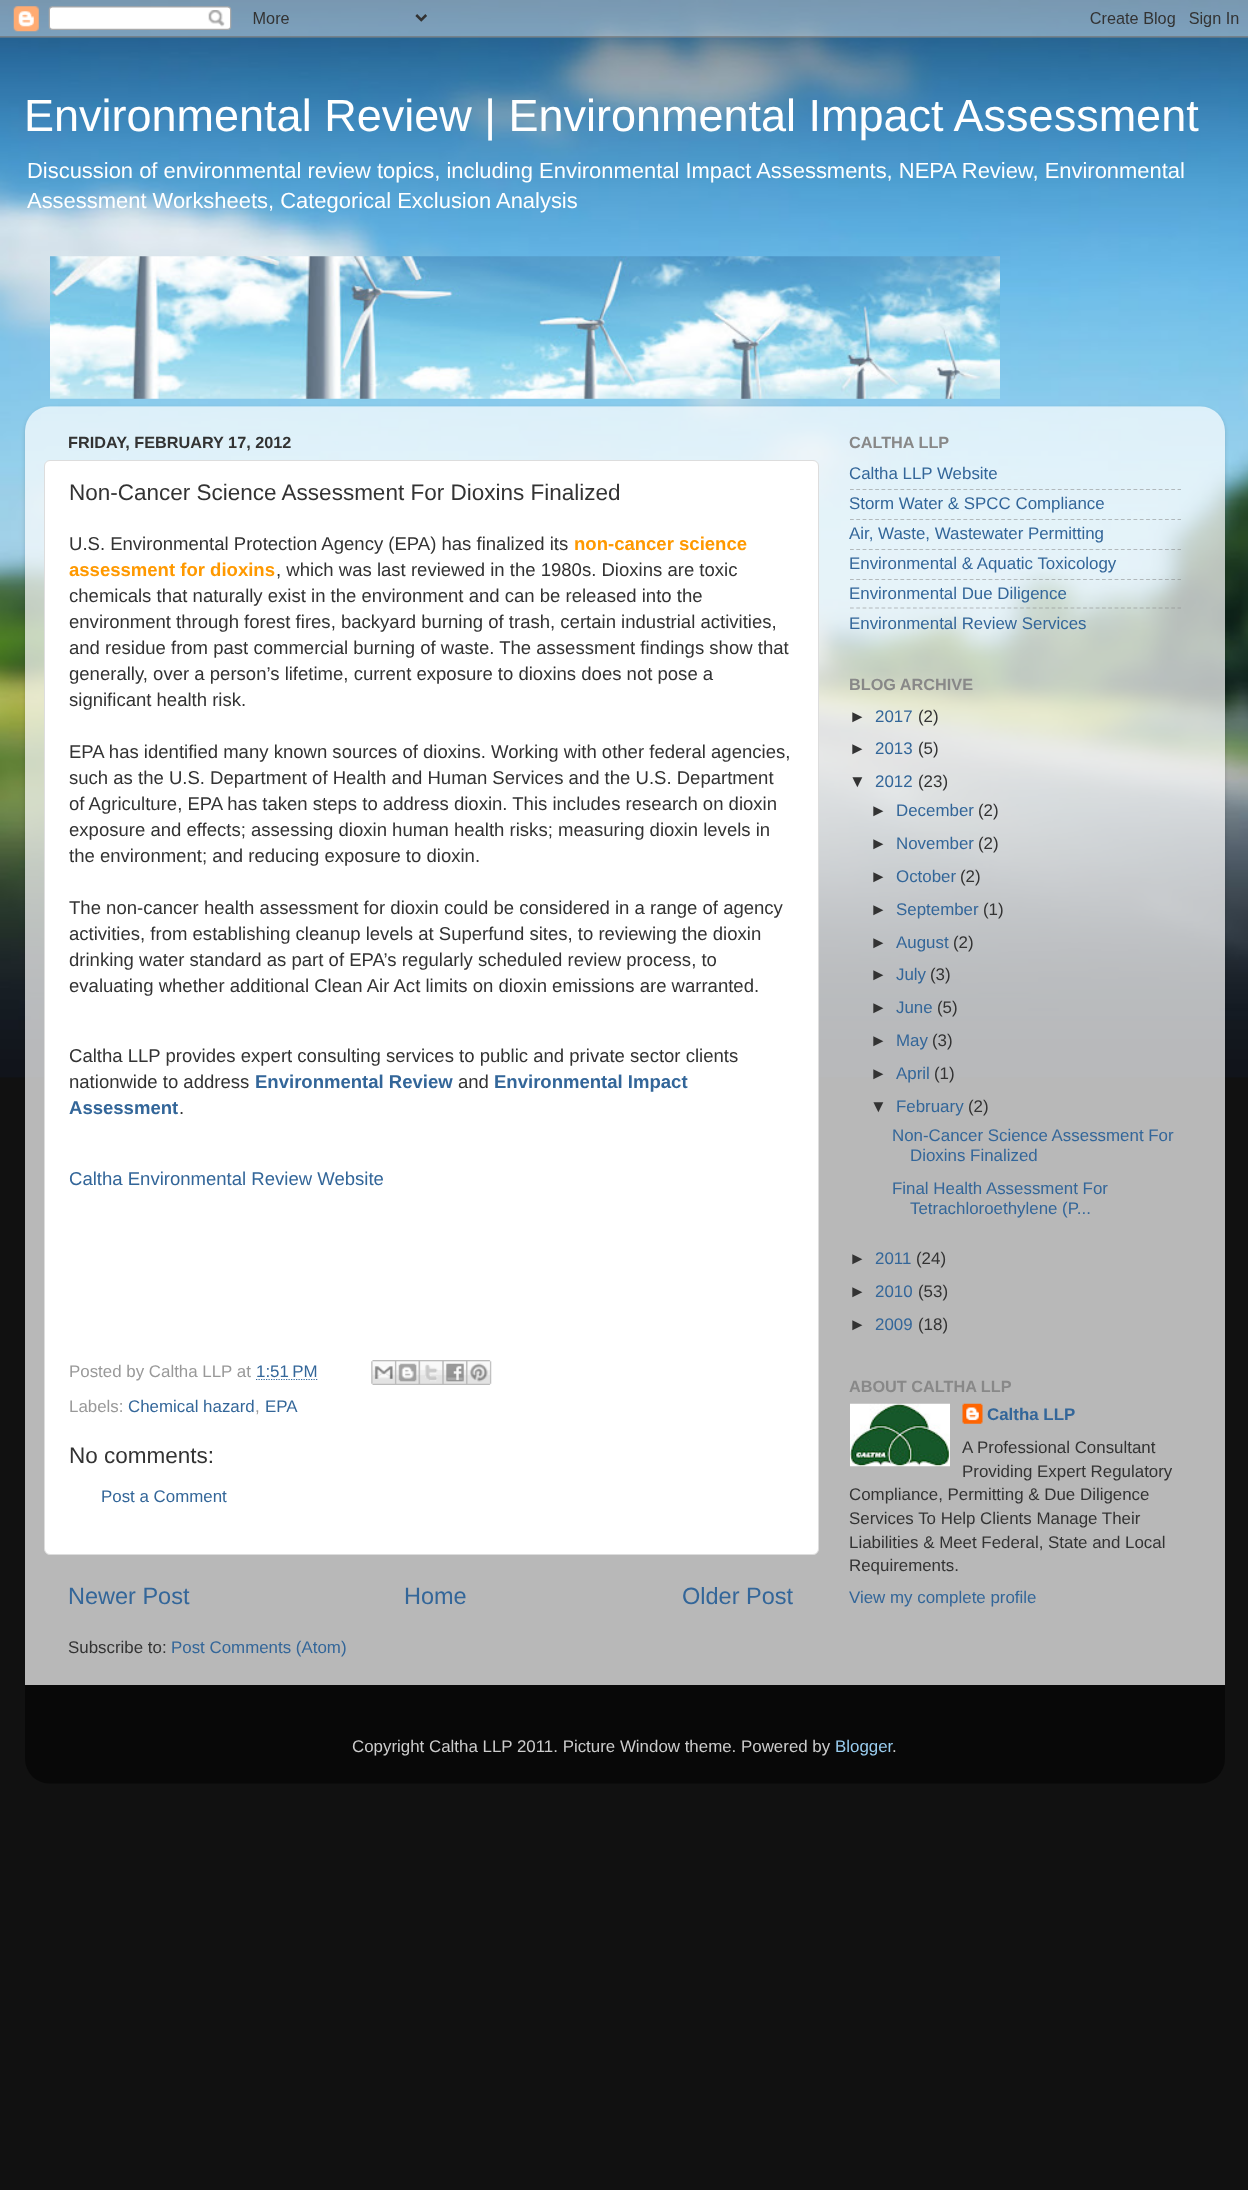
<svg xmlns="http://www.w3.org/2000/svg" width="1248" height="2190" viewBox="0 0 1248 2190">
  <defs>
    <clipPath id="clip1"><path d="M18 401H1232V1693H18ZM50 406H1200C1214 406 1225 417 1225 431V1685H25V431C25 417 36 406 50 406Z" clip-rule="evenodd"/></clipPath>
    <filter id="blur1" x="-50%" y="-200%" width="200%" height="500%"><feGaussianBlur stdDeviation="2"/></filter>
  </defs>
  <rect width="100%" height="100%" fill="#111111"/>
  <image x="0" y="0" width="1248" height="1078" href="img1.png"/>
  <image x="0" y="0" width="1248" height="38" href="img2.png"/>
  <text x="24" y="131" font-family="Liberation Sans" font-size="45" fill="#ffffff">Environmental Review | Environmental Impact Assessment</text>
  <text x="27" y="178" font-family="Liberation Sans" font-size="21.95" fill="#ffffff">Discussion of environmental review topics, including Environmental Impact Assessments, NEPA Review, Environmental</text>
  <text x="27" y="208" font-family="Liberation Sans" font-size="21.95" fill="#ffffff">Assessment Worksheets, Categorical Exclusion Analysis</text>
  <image x="50" y="256" width="950" height="143" href="img3.png"/>
  <g clip-path="url(#clip1)">
    <rect x="25" y="408" width="1200" height="1278" rx="25" fill="#000000" fill-opacity="0.15" filter="url(#blur1)"/>
  </g>
  <image x="25" y="406" width="1200" height="1279" href="img4.png"/>
  <text x="68" y="448" font-family="Liberation Sans" font-size="16.25" font-weight="bold" fill="#333333">FRIDAY, FEBRUARY 17, 2012</text>
  <rect x="44.5" y="460.5" width="774" height="1094" rx="5.5" fill="#ffffff" stroke="#dddddd"/>
  <text x="69" y="500" font-family="Liberation Sans" font-size="22.5" fill="#333333">Non-Cancer Science Assessment For Dioxins Finalized</text>
  <text x="69" y="550" font-family="Liberation Sans" font-size="18.55" fill="#333333">U.S. Environmental Protection Agency (EPA) has finalized its</text>
  <text x="574" y="550" font-family="Liberation Sans" font-size="18.55" font-weight="bold" fill="#ff9900">non-cancer science</text>
  <text x="69" y="576" font-family="Liberation Sans" font-size="18.55" font-weight="bold" fill="#ff9900">assessment for dioxins</text>
  <text x="276" y="576" font-family="Liberation Sans" font-size="18.55" fill="#333333">, which was last reviewed in the 1980s. Dioxins are toxic</text>
  <text x="69" y="602" font-family="Liberation Sans" font-size="18.55" fill="#333333">chemicals that naturally exist in the environment and can be released into the</text>
  <text x="69" y="628" font-family="Liberation Sans" font-size="18.55" fill="#333333">environment through forest fires, backyard burning of trash, certain industrial activities,</text>
  <text x="69" y="654" font-family="Liberation Sans" font-size="18.55" fill="#333333">and residue from past commercial burning of waste. The assessment findings show that</text>
  <text x="69" y="680" font-family="Liberation Sans" font-size="18.55" fill="#333333">generally, over a person’s lifetime, current exposure to dioxins does not pose a</text>
  <text x="69" y="706" font-family="Liberation Sans" font-size="18.55" fill="#333333">significant health risk.</text>
  <text x="69" y="758" font-family="Liberation Sans" font-size="18.55" fill="#333333">EPA has identified many known sources of dioxins. Working with other federal agencies,</text>
  <text x="69" y="784" font-family="Liberation Sans" font-size="18.55" fill="#333333">such as the U.S. Department of Health and Human Services and the U.S. Department</text>
  <text x="69" y="810" font-family="Liberation Sans" font-size="18.55" fill="#333333">of Agriculture, EPA has taken steps to address dioxin. This includes research on dioxin</text>
  <text x="69" y="836" font-family="Liberation Sans" font-size="18.55" fill="#333333">exposure and effects; assessing dioxin human health risks; measuring dioxin levels in</text>
  <text x="69" y="862" font-family="Liberation Sans" font-size="18.55" fill="#333333">the environment; and reducing exposure to dioxin.</text>
  <text x="69" y="914" font-family="Liberation Sans" font-size="18.55" fill="#333333">The non-cancer health assessment for dioxin could be considered in a range of agency</text>
  <text x="69" y="940" font-family="Liberation Sans" font-size="18.55" fill="#333333">activities, from establishing cleanup levels at Superfund sites, to reviewing the dioxin</text>
  <text x="69" y="966" font-family="Liberation Sans" font-size="18.55" fill="#333333">drinking water standard as part of EPA’s regularly scheduled review process, to</text>
  <text x="69" y="992" font-family="Liberation Sans" font-size="18.55" fill="#333333">evaluating whether additional Clean Air Act limits on dioxin emissions are warranted.</text>
  <text x="69" y="1062" font-family="Liberation Sans" font-size="18.55" fill="#333333">Caltha LLP provides expert consulting services to public and private sector clients</text>
  <text x="69" y="1088" font-family="Liberation Sans" font-size="18.55" fill="#333333">nationwide to address</text>
  <text x="255" y="1088" font-family="Liberation Sans" font-size="18.55" font-weight="bold" fill="#336699">Environmental Review</text>
  <text x="458" y="1088" font-family="Liberation Sans" font-size="18.55" fill="#333333">and</text>
  <text x="494" y="1088" font-family="Liberation Sans" font-size="18.55" font-weight="bold" fill="#336699">Environmental Impact</text>
  <text x="69" y="1114" font-family="Liberation Sans" font-size="18.55" font-weight="bold" fill="#336699">Assessment</text>
  <text x="179" y="1114" font-family="Liberation Sans" font-size="18.55" fill="#333333">.</text>
  <text x="69" y="1185" font-family="Liberation Sans" font-size="18.55" fill="#336699">Caltha Environmental Review Website</text>
  <text x="69" y="1377" font-family="Liberation Sans" font-size="16.9" fill="#999999">Posted by Caltha LLP at</text>
  <text x="256" y="1377" font-family="Liberation Sans" font-size="16.9" fill="#336699">1:51 PM</text>
  <path d="M256 1379.5H317.5" fill="none" stroke="#336699" stroke-width="1.2" stroke-dasharray="1.25 1.25"/>
  <image x="371" y="1360" width="24" height="25" href="img5.png"/>
  <image x="395" y="1360" width="24" height="25" href="img6.png"/>
  <image x="418" y="1360" width="25" height="25" href="img7.png"/>
  <image x="442" y="1360" width="25" height="25" href="img8.png"/>
  <image x="466" y="1360" width="26" height="25" href="img9.png"/>
  <text x="69" y="1412" font-family="Liberation Sans" font-size="16.9" fill="#999999">Labels:</text>
  <text x="128" y="1412" font-family="Liberation Sans" font-size="16.9" fill="#336699">Chemical hazard</text>
  <text x="265" y="1412" font-family="Liberation Sans" font-size="16.9" fill="#336699">EPA</text>
  <text x="255" y="1412" font-family="Liberation Sans" font-size="16.9" fill="#999999">,</text>
  <text x="69" y="1463" font-family="Liberation Sans" font-size="22.5" fill="#333333">No comments:</text>
  <text x="101" y="1502" font-family="Liberation Sans" font-size="16.9" fill="#336699">Post a Comment</text>
  <text x="68" y="1604" font-family="Liberation Sans" font-size="23.5" fill="#336699">Newer Post</text>
  <text x="404" y="1604" font-family="Liberation Sans" font-size="23.5" fill="#336699">Home</text>
  <text x="682" y="1604" font-family="Liberation Sans" font-size="23.5" fill="#336699">Older Post</text>
  <text x="68" y="1653" font-family="Liberation Sans" font-size="16.9" fill="#333333">Subscribe to:</text>
  <text x="171" y="1653" font-family="Liberation Sans" font-size="16.9" fill="#336699">Post Comments (Atom)</text>
  <text x="849" y="448" font-family="Liberation Sans" font-size="16.25" font-weight="bold" fill="#888888">CALTHA LLP</text>
  <text x="849" y="479" font-family="Liberation Sans" font-size="16.9" fill="#336699">Caltha LLP Website</text>
  <path d="M850 489.5H1181" fill="none" stroke="#808080" stroke-opacity="0.5" stroke-width="1.2" stroke-dasharray="3.75 2.55"/>
  <text x="849" y="509" font-family="Liberation Sans" font-size="16.9" fill="#336699">Storm Water &amp; SPCC Compliance</text>
  <path d="M850 519.5H1181" fill="none" stroke="#808080" stroke-opacity="0.5" stroke-width="1.2" stroke-dasharray="3.75 2.55"/>
  <text x="849" y="539" font-family="Liberation Sans" font-size="16.9" fill="#336699">Air, Waste, Wastewater Permitting</text>
  <path d="M850 549.5H1181" fill="none" stroke="#808080" stroke-opacity="0.5" stroke-width="1.2" stroke-dasharray="3.75 2.55"/>
  <text x="849" y="569" font-family="Liberation Sans" font-size="16.9" fill="#336699">Environmental &amp; Aquatic Toxicology</text>
  <path d="M850 579.5H1181" fill="none" stroke="#808080" stroke-opacity="0.5" stroke-width="1.2" stroke-dasharray="3.75 2.55"/>
  <text x="849" y="599" font-family="Liberation Sans" font-size="16.9" fill="#336699">Environmental Due Diligence</text>
  <path d="M850 608H1181" fill="none" stroke="#808080" stroke-opacity="0.5" stroke-width="1.2" stroke-dasharray="3.75 2.55"/>
  <text x="849" y="629" font-family="Liberation Sans" font-size="16.9" fill="#336699">Environmental Review Services</text>
  <text x="849" y="690" font-family="Liberation Sans" font-size="16.25" font-weight="bold" fill="#888888">BLOG ARCHIVE</text>
  <text x="849" y="722" font-family="Liberation Sans" font-size="16.9" fill="#333333">►</text>
  <text x="875" y="722" font-family="Liberation Sans" font-size="16.9" fill="#336699">2017</text>
  <text x="918" y="722" font-family="Liberation Sans" font-size="16.9" fill="#333333">(2)</text>
  <text x="849" y="754" font-family="Liberation Sans" font-size="16.9" fill="#333333">►</text>
  <text x="875" y="754" font-family="Liberation Sans" font-size="16.9" fill="#336699">2013</text>
  <text x="918" y="754" font-family="Liberation Sans" font-size="16.9" fill="#333333">(5)</text>
  <text x="849" y="787" font-family="Liberation Sans" font-size="16.9" fill="#333333">▼</text>
  <text x="875" y="787" font-family="Liberation Sans" font-size="16.9" fill="#336699">2012</text>
  <text x="918" y="787" font-family="Liberation Sans" font-size="16.9" fill="#333333">(23)</text>
  <text x="870" y="816" font-family="Liberation Sans" font-size="16.9" fill="#333333">►</text>
  <text x="896" y="816" font-family="Liberation Sans" font-size="16.9" fill="#336699">December</text>
  <text x="978" y="816" font-family="Liberation Sans" font-size="16.9" fill="#333333">(2)</text>
  <text x="870" y="849" font-family="Liberation Sans" font-size="16.9" fill="#333333">►</text>
  <text x="896" y="849" font-family="Liberation Sans" font-size="16.9" fill="#336699">November</text>
  <text x="978" y="849" font-family="Liberation Sans" font-size="16.9" fill="#333333">(2)</text>
  <text x="870" y="882" font-family="Liberation Sans" font-size="16.9" fill="#333333">►</text>
  <text x="896" y="882" font-family="Liberation Sans" font-size="16.9" fill="#336699">October</text>
  <text x="960" y="882" font-family="Liberation Sans" font-size="16.9" fill="#333333">(2)</text>
  <text x="870" y="915" font-family="Liberation Sans" font-size="16.9" fill="#333333">►</text>
  <text x="896" y="915" font-family="Liberation Sans" font-size="16.9" fill="#336699">September</text>
  <text x="983" y="915" font-family="Liberation Sans" font-size="16.9" fill="#333333">(1)</text>
  <text x="870" y="948" font-family="Liberation Sans" font-size="16.9" fill="#333333">►</text>
  <text x="896" y="948" font-family="Liberation Sans" font-size="16.9" fill="#336699">August</text>
  <text x="953" y="948" font-family="Liberation Sans" font-size="16.9" fill="#333333">(2)</text>
  <text x="870" y="980" font-family="Liberation Sans" font-size="16.9" fill="#333333">►</text>
  <text x="896" y="980" font-family="Liberation Sans" font-size="16.9" fill="#336699">July</text>
  <text x="930" y="980" font-family="Liberation Sans" font-size="16.9" fill="#333333">(3)</text>
  <text x="870" y="1013" font-family="Liberation Sans" font-size="16.9" fill="#333333">►</text>
  <text x="896" y="1013" font-family="Liberation Sans" font-size="16.9" fill="#336699">June</text>
  <text x="937" y="1013" font-family="Liberation Sans" font-size="16.9" fill="#333333">(5)</text>
  <text x="870" y="1046" font-family="Liberation Sans" font-size="16.9" fill="#333333">►</text>
  <text x="896" y="1046" font-family="Liberation Sans" font-size="16.9" fill="#336699">May</text>
  <text x="932" y="1046" font-family="Liberation Sans" font-size="16.9" fill="#333333">(3)</text>
  <text x="870" y="1079" font-family="Liberation Sans" font-size="16.9" fill="#333333">►</text>
  <text x="896" y="1079" font-family="Liberation Sans" font-size="16.9" fill="#336699">April</text>
  <text x="934" y="1079" font-family="Liberation Sans" font-size="16.9" fill="#333333">(1)</text>
  <text x="870" y="1112" font-family="Liberation Sans" font-size="16.9" fill="#333333">▼</text>
  <text x="896" y="1112" font-family="Liberation Sans" font-size="16.9" fill="#336699">February</text>
  <text x="968" y="1112" font-family="Liberation Sans" font-size="16.9" fill="#333333">(2)</text>
  <text x="892" y="1141" font-family="Liberation Sans" font-size="16.9" fill="#336699">Non-Cancer Science Assessment For</text>
  <text x="910" y="1161" font-family="Liberation Sans" font-size="16.9" fill="#336699">Dioxins Finalized</text>
  <text x="892" y="1194" font-family="Liberation Sans" font-size="16.9" fill="#336699">Final Health Assessment For</text>
  <text x="910" y="1214" font-family="Liberation Sans" font-size="16.9" fill="#336699">Tetrachloroethylene (P...</text>
  <text x="849" y="1264" font-family="Liberation Sans" font-size="16.9" fill="#333333">►</text>
  <text x="875" y="1264" font-family="Liberation Sans" font-size="16.9" fill="#336699">2011</text>
  <text x="916" y="1264" font-family="Liberation Sans" font-size="16.9" fill="#333333">(24)</text>
  <text x="849" y="1297" font-family="Liberation Sans" font-size="16.9" fill="#333333">►</text>
  <text x="875" y="1297" font-family="Liberation Sans" font-size="16.9" fill="#336699">2010</text>
  <text x="918" y="1297" font-family="Liberation Sans" font-size="16.9" fill="#333333">(53)</text>
  <text x="849" y="1330" font-family="Liberation Sans" font-size="16.9" fill="#333333">►</text>
  <text x="875" y="1330" font-family="Liberation Sans" font-size="16.9" fill="#336699">2009</text>
  <text x="918" y="1330" font-family="Liberation Sans" font-size="16.9" fill="#333333">(18)</text>
  <text x="849" y="1392" font-family="Liberation Sans" font-size="16.25" font-weight="bold" fill="#888888">ABOUT CALTHA LLP</text>
  <image x="850" y="1403" width="100" height="64" href="img10.png"/>
  <image x="962" y="1403" width="21" height="21" href="img11.png"/>
  <text x="987" y="1420" font-family="Liberation Sans" font-size="16.9" font-weight="bold" fill="#336699">Caltha LLP</text>
  <text x="962" y="1453" font-family="Liberation Sans" font-size="16.9" fill="#333333">A Professional Consultant</text>
  <text x="962" y="1477" font-family="Liberation Sans" font-size="16.9" fill="#333333">Providing Expert Regulatory</text>
  <text x="849" y="1500" font-family="Liberation Sans" font-size="16.9" fill="#333333">Compliance, Permitting &amp; Due Diligence</text>
  <text x="849" y="1524" font-family="Liberation Sans" font-size="16.9" fill="#333333">Services To Help Clients Manage Their</text>
  <text x="849" y="1548" font-family="Liberation Sans" font-size="16.9" fill="#333333">Liabilities &amp; Meet Federal, State and Local</text>
  <text x="849" y="1571" font-family="Liberation Sans" font-size="16.9" fill="#333333">Requirements.</text>
  <text x="849" y="1603" font-family="Liberation Sans" font-size="16.9" fill="#336699">View my complete profile</text>
  <image x="25" y="1685" width="1200" height="99" href="img12.png"/>
  <text x="352" y="1752" font-family="Liberation Sans" font-size="16.9" fill="#cccccc">Copyright Caltha LLP 2011. Picture Window theme. Powered by</text>
  <text x="835" y="1752" font-family="Liberation Sans" font-size="16.9" fill="#99ccee">Blogger</text>
  <text x="892" y="1752" font-family="Liberation Sans" font-size="16.9" fill="#cccccc">.</text>
</svg>
